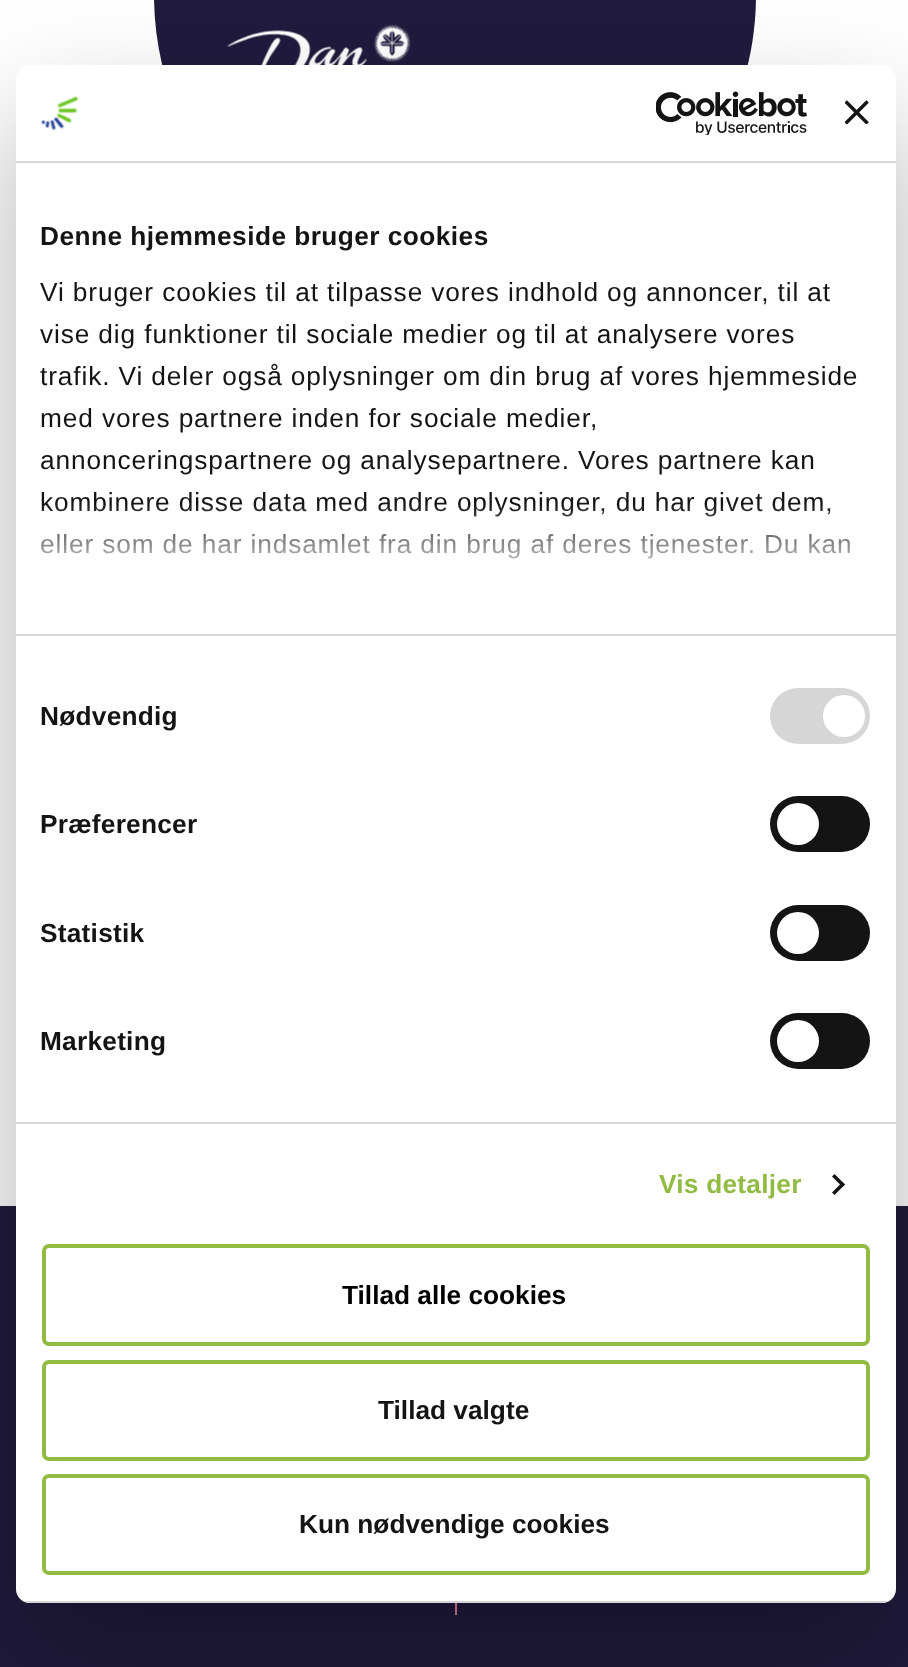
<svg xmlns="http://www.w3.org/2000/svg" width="908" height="1667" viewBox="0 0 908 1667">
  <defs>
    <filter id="blur1" x="-50%" y="-200%" width="200%" height="500%"><feGaussianBlur stdDeviation="59.5"/></filter>
    <linearGradient id="g1" gradientUnits="userSpaceOnUse" x1="444" y1="634" x2="444" y2="503"><stop offset="0" stop-color="#ffffff"/><stop offset="0.5" stop-color="#ffffff" stop-opacity="0.8"/><stop offset="1" stop-color="#ffffff" stop-opacity="0"/></linearGradient>
    <clipPath id="clip1"><rect x="16" y="65" width="880" height="1538" rx="14"/></clipPath>
  </defs>
  <rect width="100%" height="100%" fill="#ffffff"/>
  <path d="M756-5C756 161 621 296 455 296C289 296 154 161 154-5" fill="#201a3d"/>
  <image x="227" y="24" width="184" height="41" href="img1.png"/>
  <rect x="0" y="1206" width="908" height="461" fill="#201a3d"/>
  <rect x="455" y="1603" width="2" height="12" fill="#e97ca1"/>
  <rect x="16" y="121" width="880" height="1538" rx="14" fill="#000000" fill-opacity="0.3" filter="url(#blur1)"/>
  <rect x="16" y="65" width="880" height="1538" rx="14" fill="#ffffff"/>
  <rect x="16" y="161" width="880" height="2" fill="#d6d6d6"/>
  <image x="40" y="96" width="39" height="35" href="img2.png"/>
  <image x="656" y="91" width="151" height="44" href="img3.png"/>
  <image x="845" y="100" width="24" height="24" href="img4.png"/>
  <rect x="16" y="634" width="880" height="2" fill="#d6d6d6"/>
  <text x="40" y="245" font-family="Liberation Sans" font-size="26.25" font-weight="bold" letter-spacing="0.45" fill="#141414">Denne hjemmeside bruger cookies</text>
  <text x="40" y="301" font-family="Liberation Sans" font-size="26.25" letter-spacing="0.88" fill="#141414">Vi bruger cookies til at tilpasse vores indhold og annoncer, til at</text>
  <text x="40" y="343" font-family="Liberation Sans" font-size="26.25" letter-spacing="0.88" fill="#141414">vise dig funktioner til sociale medier og til at analysere vores</text>
  <text x="40" y="385" font-family="Liberation Sans" font-size="26.25" letter-spacing="0.88" fill="#141414">trafik. Vi deler også oplysninger om din brug af vores hjemmeside</text>
  <text x="40" y="427" font-family="Liberation Sans" font-size="26.25" letter-spacing="0.88" fill="#141414">med vores partnere inden for sociale medier,</text>
  <text x="40" y="469" font-family="Liberation Sans" font-size="26.25" letter-spacing="0.88" fill="#141414">annonceringspartnere og analysepartnere. Vores partnere kan</text>
  <text x="40" y="511" font-family="Liberation Sans" font-size="26.25" letter-spacing="0.88" fill="#141414">kombinere disse data med andre oplysninger, du har givet dem,</text>
  <text x="40" y="553" font-family="Liberation Sans" font-size="26.25" letter-spacing="0.88" fill="#141414">eller som de har indsamlet fra din brug af deres tjenester. Du kan</text>
  <rect x="41" y="505" width="809" height="54" fill="url(#g1)"/>
  <rect x="16" y="1122" width="880" height="2" fill="#d6d6d6"/>
  <text x="40" y="725" font-family="Liberation Sans" font-size="26.25" font-weight="bold" letter-spacing="0.25" fill="#141414">Nødvendig</text>
  <rect x="770" y="688" width="100" height="56" rx="28" fill="#d6d6d6"/>
  <circle cx="844" cy="716" r="21" fill="#ffffff"/>
  <text x="40" y="833" font-family="Liberation Sans" font-size="26.25" font-weight="bold" letter-spacing="0.25" fill="#141414">Præferencer</text>
  <rect x="770" y="796" width="100" height="56" rx="28" fill="#141414"/>
  <circle cx="798" cy="824" r="21" fill="#ffffff"/>
  <text x="40" y="942" font-family="Liberation Sans" font-size="26.25" font-weight="bold" letter-spacing="0.25" fill="#141414">Statistik</text>
  <rect x="770" y="905" width="100" height="56" rx="28" fill="#141414"/>
  <circle cx="798" cy="933" r="21" fill="#ffffff"/>
  <text x="40" y="1050" font-family="Liberation Sans" font-size="26.25" font-weight="bold" letter-spacing="0.25" fill="#141414">Marketing</text>
  <rect x="770" y="1013" width="100" height="56" rx="28" fill="#141414"/>
  <circle cx="798" cy="1041" r="21" fill="#ffffff"/>
  <text x="659" y="1193" font-family="Liberation Sans" font-size="26.25" font-weight="bold" letter-spacing="0.25" fill="#92bb44">Vis detaljer</text>
  <path d="M834.5 1174L845 1184.5L842.5 1187L832 1176.5Z" fill="#141414"/>
  <path d="M842.5 1182L845 1184.5L834.5 1195L832 1192.5Z" fill="#141414"/>
  <g clip-path="url(#clip1)">
    <rect x="16" y="1601" width="880" height="2" fill="#d6d6d6"/>
  </g>
  <rect x="44" y="1246" width="824" height="98" rx="5" fill="none" stroke="#92bb44" stroke-width="4"/>
  <text x="342" y="1304" font-family="Liberation Sans" font-size="26.25" font-weight="bold" fill="#000000">Tillad alle cookies</text>
  <rect x="44" y="1362" width="824" height="97" rx="5" fill="none" stroke="#92bb44" stroke-width="4"/>
  <text x="378" y="1419" font-family="Liberation Sans" font-size="26.25" font-weight="bold" fill="#141414">Tillad valgte</text>
  <rect x="44" y="1476" width="824" height="97" rx="5" fill="none" stroke="#92bb44" stroke-width="4"/>
  <text x="299" y="1533" font-family="Liberation Sans" font-size="26.25" font-weight="bold" fill="#141414">Kun nødvendige cookies</text>
</svg>
